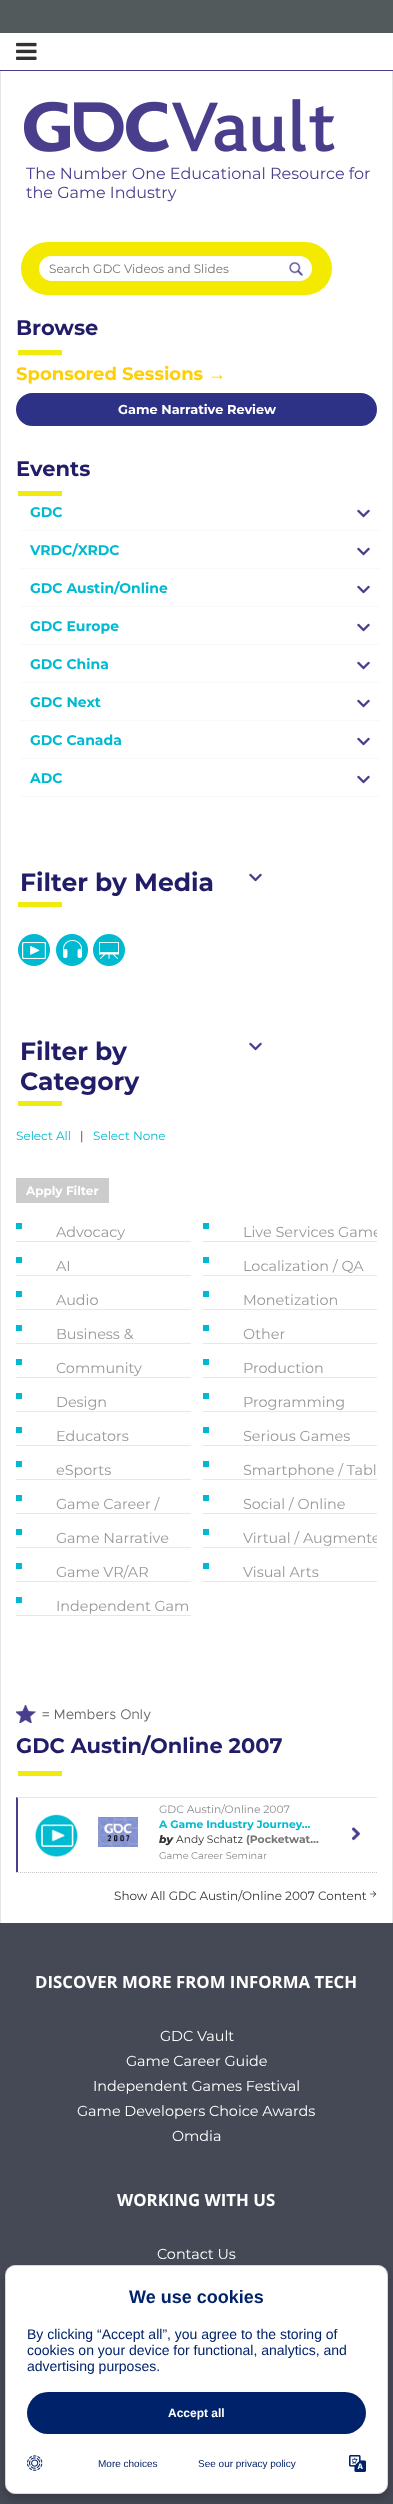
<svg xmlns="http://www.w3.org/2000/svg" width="393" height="2504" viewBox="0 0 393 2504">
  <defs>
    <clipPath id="clip1"><rect x="203" y="1218" width="174" height="23"/></clipPath>
    <clipPath id="clip2"><rect x="203" y="1524" width="174" height="23"/></clipPath>
    <filter id="blur1" x="-50%" y="-200%" width="200%" height="500%"><feGaussianBlur stdDeviation="5"/></filter>
  </defs>
  <rect width="100%" height="100%" fill="#ffffff"/>
  <rect x="0" y="0" width="393" height="33" fill="#525a5c"/>
  <rect x="0" y="70" width="393" height="1" fill="#483e8c"/>
  <image x="16" y="42" width="21" height="18" href="img1.png"/>
  <rect x="392" y="71" width="1" height="1852" fill="#e5e5e5"/>
  <rect x="0" y="71" width="1" height="1852" fill="#e5e5e5"/>
  <image x="24" y="99" width="311" height="53" href="img2.png"/>
  <text x="26" y="179" font-family="Montserrat" font-size="16" fill="#483e8c">The Number One Educational Resource for</text>
  <text x="26" y="198" font-family="Montserrat" font-size="16" fill="#483e8c">the Game Industry</text>
  <rect x="21" y="242" width="311" height="53" rx="26.5" fill="#f3ea00"/>
  <rect x="39" y="256" width="273" height="25" rx="12.5" fill="#ffffff"/>
  <text x="49" y="273" font-family="Montserrat" font-size="12" fill="#757575">Search GDC Videos and Slides</text>
  <image x="289" y="262" width="14" height="14" href="img3.png"/>
  <text x="16" y="335" font-family="Montserrat" font-size="21" font-weight="bold" fill="#221d67">Browse</text>
  <rect x="18" y="350" width="44" height="5" fill="#f1ea0c"/>
  <text x="16" y="380" font-family="Montserrat" font-size="18" font-weight="bold" fill="#fece07">Sponsored Sessions</text>
  <text x="208" y="380" font-family="Liberation Sans" font-size="18" font-weight="bold" fill="#fece07">→</text>
  <rect x="17" y="394" width="359" height="31" rx="15.5" fill="#2e3287" stroke="#2e3287" stroke-width="2"/>
  <text x="118" y="414" font-family="Montserrat" font-size="12.9" font-weight="bold" fill="#ffffff">Game Narrative Review</text>
  <text x="16" y="476" font-family="Montserrat" font-size="21" font-weight="bold" fill="#221d67">Events</text>
  <rect x="18" y="491" width="44" height="5" fill="#f1ea0c"/>
  <rect x="20" y="530" width="361" height="1" fill="#f9f9f9"/>
  <text x="30" y="517" font-family="Montserrat" font-size="14" font-weight="bold" fill="#00bad1">GDC</text>
  <image x="357" y="509" width="13" height="9" href="img4.png"/>
  <rect x="20" y="568" width="361" height="1" fill="#f9f9f9"/>
  <text x="30" y="555" font-family="Montserrat" font-size="14" font-weight="bold" fill="#00bad1">VRDC/XRDC</text>
  <image x="357" y="547" width="13" height="9" href="img4.png"/>
  <rect x="20" y="606" width="361" height="1" fill="#f9f9f9"/>
  <text x="30" y="593" font-family="Montserrat" font-size="14" font-weight="bold" fill="#00bad1">GDC Austin/Online</text>
  <image x="357" y="585" width="13" height="9" href="img4.png"/>
  <rect x="20" y="644" width="361" height="1" fill="#f9f9f9"/>
  <text x="30" y="631" font-family="Montserrat" font-size="14" font-weight="bold" fill="#00bad1">GDC Europe</text>
  <image x="357" y="623" width="13" height="9" href="img4.png"/>
  <rect x="20" y="682" width="361" height="1" fill="#f9f9f9"/>
  <text x="30" y="669" font-family="Montserrat" font-size="14" font-weight="bold" fill="#00bad1">GDC China</text>
  <image x="357" y="661" width="13" height="9" href="img4.png"/>
  <rect x="20" y="720" width="361" height="1" fill="#f9f9f9"/>
  <text x="30" y="707" font-family="Montserrat" font-size="14" font-weight="bold" fill="#00bad1">GDC Next</text>
  <image x="357" y="699" width="13" height="9" href="img4.png"/>
  <rect x="20" y="758" width="361" height="1" fill="#f9f9f9"/>
  <text x="30" y="745" font-family="Montserrat" font-size="14" font-weight="bold" fill="#00bad1">GDC Canada</text>
  <image x="357" y="737" width="13" height="9" href="img4.png"/>
  <rect x="20" y="796" width="361" height="1" fill="#f9f9f9"/>
  <text x="30" y="783" font-family="Montserrat" font-size="14" font-weight="bold" fill="#00bad1">ADC</text>
  <image x="357" y="775" width="13" height="9" href="img4.png"/>
  <text x="20" y="891" font-family="Montserrat" font-size="25" font-weight="bold" fill="#221d67">Filter by Media</text>
  <rect x="18" y="902" width="44" height="5" fill="#f1ea0c"/>
  <image x="249" y="873" width="13" height="9" href="img4.png"/>
  <image x="18" y="934" width="32" height="32" href="img5.png"/>
  <image x="56" y="934" width="32" height="32" href="img6.png"/>
  <image x="93" y="934" width="32" height="32" href="img7.png"/>
  <text x="20" y="1060" font-family="Montserrat" font-size="25" font-weight="bold" fill="#221d67">Filter by</text>
  <text x="20" y="1090" font-family="Montserrat" font-size="25" font-weight="bold" fill="#221d67">Category</text>
  <rect x="18" y="1101" width="44" height="5" fill="#f1ea0c"/>
  <image x="249" y="1042" width="13" height="9" href="img4.png"/>
  <text x="16" y="1140" font-family="Montserrat" font-size="12" fill="#00bad1">Select All</text>
  <text x="80" y="1140" font-family="Montserrat" font-size="12" fill="#333333">|</text>
  <text x="93" y="1140" font-family="Montserrat" font-size="12" fill="#00bad1">Select None</text>
  <rect x="16" y="1178" width="93" height="25" fill="#cccccc"/>
  <text x="26" y="1195" font-family="Montserrat" font-size="12" font-weight="bold" fill="#ffffff">Apply Filter</text>
  <rect x="16" y="1241" width="175" height="1" fill="#ede5e5"/>
  <rect x="16" y="1223" width="6" height="6" fill="#00bad1"/>
  <text x="56" y="1237" font-family="Montserrat" font-size="14.4" fill="#999999">Advocacy</text>
  <rect x="203" y="1241" width="174" height="1" fill="#ede5e5"/>
  <rect x="203" y="1223" width="6" height="6" fill="#00bad1"/>
  <g clip-path="url(#clip1)">
    <text x="243" y="1237" font-family="Montserrat" font-size="14.4" fill="#999999">Live Services Game</text>
  </g>
  <rect x="16" y="1275" width="175" height="1" fill="#ede5e5"/>
  <rect x="16" y="1257" width="6" height="6" fill="#00bad1"/>
  <text x="56" y="1271" font-family="Montserrat" font-size="14.4" fill="#999999">AI</text>
  <rect x="203" y="1275" width="174" height="1" fill="#ede5e5"/>
  <rect x="203" y="1257" width="6" height="6" fill="#00bad1"/>
  <text x="243" y="1271" font-family="Montserrat" font-size="14.4" fill="#999999">Localization / QA</text>
  <rect x="16" y="1309" width="175" height="1" fill="#ede5e5"/>
  <rect x="16" y="1291" width="6" height="6" fill="#00bad1"/>
  <text x="56" y="1305" font-family="Montserrat" font-size="14.4" fill="#999999">Audio</text>
  <rect x="203" y="1309" width="174" height="1" fill="#ede5e5"/>
  <rect x="203" y="1291" width="6" height="6" fill="#00bad1"/>
  <text x="243" y="1305" font-family="Montserrat" font-size="14.4" fill="#999999">Monetization</text>
  <rect x="16" y="1343" width="175" height="1" fill="#ede5e5"/>
  <rect x="16" y="1325" width="6" height="6" fill="#00bad1"/>
  <text x="56" y="1339" font-family="Montserrat" font-size="14.4" fill="#999999">Business &amp;</text>
  <rect x="203" y="1343" width="174" height="1" fill="#ede5e5"/>
  <rect x="203" y="1325" width="6" height="6" fill="#00bad1"/>
  <text x="243" y="1339" font-family="Montserrat" font-size="14.4" fill="#999999">Other</text>
  <rect x="16" y="1377" width="175" height="1" fill="#ede5e5"/>
  <rect x="16" y="1359" width="6" height="6" fill="#00bad1"/>
  <text x="56" y="1373" font-family="Montserrat" font-size="14.4" fill="#999999">Community</text>
  <rect x="203" y="1377" width="174" height="1" fill="#ede5e5"/>
  <rect x="203" y="1359" width="6" height="6" fill="#00bad1"/>
  <text x="243" y="1373" font-family="Montserrat" font-size="14.4" fill="#999999">Production</text>
  <rect x="16" y="1411" width="175" height="1" fill="#ede5e5"/>
  <rect x="16" y="1393" width="6" height="6" fill="#00bad1"/>
  <text x="56" y="1407" font-family="Montserrat" font-size="14.4" fill="#999999">Design</text>
  <rect x="203" y="1411" width="174" height="1" fill="#ede5e5"/>
  <rect x="203" y="1393" width="6" height="6" fill="#00bad1"/>
  <text x="243" y="1407" font-family="Montserrat" font-size="14.4" fill="#999999">Programming</text>
  <rect x="16" y="1445" width="175" height="1" fill="#ede5e5"/>
  <rect x="16" y="1427" width="6" height="6" fill="#00bad1"/>
  <text x="56" y="1441" font-family="Montserrat" font-size="14.4" fill="#999999">Educators</text>
  <rect x="203" y="1445" width="174" height="1" fill="#ede5e5"/>
  <rect x="203" y="1427" width="6" height="6" fill="#00bad1"/>
  <text x="243" y="1441" font-family="Montserrat" font-size="14.4" fill="#999999">Serious Games</text>
  <rect x="16" y="1479" width="175" height="1" fill="#ede5e5"/>
  <rect x="16" y="1461" width="6" height="6" fill="#00bad1"/>
  <text x="56" y="1475" font-family="Montserrat" font-size="14.4" fill="#999999">eSports</text>
  <rect x="203" y="1479" width="174" height="1" fill="#ede5e5"/>
  <rect x="203" y="1461" width="6" height="6" fill="#00bad1"/>
  <text x="243" y="1475" font-family="Montserrat" font-size="14.4" fill="#999999">Smartphone / Tabl</text>
  <rect x="16" y="1513" width="175" height="1" fill="#ede5e5"/>
  <rect x="16" y="1495" width="6" height="6" fill="#00bad1"/>
  <text x="56" y="1509" font-family="Montserrat" font-size="14.4" fill="#999999">Game Career /</text>
  <rect x="203" y="1513" width="174" height="1" fill="#ede5e5"/>
  <rect x="203" y="1495" width="6" height="6" fill="#00bad1"/>
  <text x="243" y="1509" font-family="Montserrat" font-size="14.4" fill="#999999">Social / Online</text>
  <rect x="16" y="1547" width="175" height="1" fill="#ede5e5"/>
  <rect x="16" y="1529" width="6" height="6" fill="#00bad1"/>
  <text x="56" y="1543" font-family="Montserrat" font-size="14.4" fill="#999999">Game Narrative</text>
  <rect x="203" y="1547" width="174" height="1" fill="#ede5e5"/>
  <rect x="203" y="1529" width="6" height="6" fill="#00bad1"/>
  <g clip-path="url(#clip2)">
    <text x="243" y="1543" font-family="Montserrat" font-size="14.4" fill="#999999">Virtual / Augmente</text>
  </g>
  <rect x="16" y="1581" width="175" height="1" fill="#ede5e5"/>
  <rect x="16" y="1563" width="6" height="6" fill="#00bad1"/>
  <text x="56" y="1577" font-family="Montserrat" font-size="14.4" fill="#999999">Game VR/AR</text>
  <rect x="203" y="1581" width="174" height="1" fill="#ede5e5"/>
  <rect x="203" y="1563" width="6" height="6" fill="#00bad1"/>
  <text x="243" y="1577" font-family="Montserrat" font-size="14.4" fill="#999999">Visual Arts</text>
  <rect x="16" y="1615" width="175" height="1" fill="#ede5e5"/>
  <rect x="16" y="1597" width="6" height="6" fill="#00bad1"/>
  <text x="56" y="1611" font-family="Montserrat" font-size="14.4" fill="#999999">Independent Gam</text>
  <image x="16" y="1705" width="135" height="18" href="img8.png"/>
  <path d="M16 1872.5H377" fill="none" stroke="#c5c5c5" stroke-dasharray="1 1"/>
  <text x="16" y="1753" font-family="Montserrat" font-size="21" font-weight="bold" fill="#221d67">GDC Austin/Online 2007</text>
  <rect x="18" y="1771" width="44" height="5" fill="#f1ea0c"/>
  <path d="M16 1797H377V1798H18Z" fill="#ede5e5"/>
  <path d="M16 1872V1797L18 1798V1872Z" fill="#483e8c"/>
  <image x="35" y="1814" width="43" height="43" href="img9.png"/>
  <image x="98" y="1817" width="40" height="30" href="img10.png"/>
  <text x="159" y="1813" font-family="Montserrat" font-size="10.75" fill="#8c8c8c">GDC Austin/Online 2007</text>
  <text x="159" y="1828" font-family="Montserrat" font-size="10.75" font-weight="bold" fill="#00bad1">A Game Industry Journey…</text>
  <text x="159" y="1843" font-family="Montserrat" font-size="10.75" font-weight="100" font-style="italic" fill="#333333">by</text>
  <text x="176" y="1843" font-family="Montserrat" font-size="10.75" fill="#333333">Andy Schatz</text>
  <text x="246" y="1843" font-family="Montserrat" font-size="10.75" font-weight="bold" fill="#757575">(Pocketwat…</text>
  <text x="159" y="1859" font-family="Montserrat" font-size="9.75" fill="#8c8c8c">Game Career Seminar</text>
  <image x="352" y="1827" width="8" height="14" href="img11.png"/>
  <text x="114" y="1900" font-family="Montserrat" font-size="12" fill="#333333">Show All GDC Austin/Online 2007 Content</text>
  <image x="370" y="1891" width="7" height="6" href="img12.png"/>
  <rect x="0" y="1923" width="393" height="581" fill="#454955"/>
  <text x="35" y="1988" font-family="Open Sans" font-size="16.8" font-weight="bold" fill="#ffffff">DISCOVER MORE FROM INFORMA TECH</text>
  <text x="160" y="2041" font-family="Montserrat" font-size="14.4" fill="#ffffff">GDC Vault</text>
  <text x="126" y="2066" font-family="Montserrat" font-size="14.4" fill="#ffffff">Game Career Guide</text>
  <text x="93" y="2091" font-family="Montserrat" font-size="14.4" fill="#ffffff">Independent Games Festival</text>
  <text x="77" y="2116" font-family="Montserrat" font-size="14.4" fill="#ffffff">Game Developers Choice Awards</text>
  <text x="172" y="2141" font-family="Montserrat" font-size="14.4" fill="#ffffff">Omdia</text>
  <text x="117" y="2206" font-family="Open Sans" font-size="16.8" font-weight="bold" fill="#ffffff">WORKING WITH US</text>
  <text x="157" y="2259" font-family="Montserrat" font-size="14.4" fill="#ffffff">Contact Us</text>
  <rect x="5" y="2270" width="383" height="229" rx="10" fill="#000000" fill-opacity="0.2" filter="url(#blur1)"/>
  <rect x="5.5" y="2265.5" width="382" height="228" rx="9.5" fill="#ffffff" stroke="#d8d8d8"/>
  <text x="129" y="2303" font-family="Liberation Sans" font-size="18" font-weight="bold" fill="#00226a">We use cookies</text>
  <text x="27" y="2339" font-family="Liberation Sans" font-size="14" fill="#00226a">By clicking “Accept all”, you agree to the storing of</text>
  <text x="27" y="2355" font-family="Liberation Sans" font-size="14" fill="#00226a">cookies on your device for functional, analytics, and</text>
  <text x="27" y="2371" font-family="Liberation Sans" font-size="14" fill="#00226a">advertising purposes.</text>
  <rect x="27" y="2392" width="339" height="42" rx="21" fill="#00226a"/>
  <text x="168" y="2417" font-family="Liberation Sans" font-size="12" font-weight="bold" fill="#ffffff">Accept all</text>
  <image x="27" y="2455" width="16" height="16" href="img13.png"/>
  <text x="98" y="2467" font-family="Liberation Sans" font-size="10" fill="#00226a">More choices</text>
  <text x="198" y="2467" font-family="Liberation Sans" font-size="10" fill="#00226a">See our privacy policy</text>
  <image x="349" y="2455" width="17" height="17" href="img14.png"/>
</svg>
